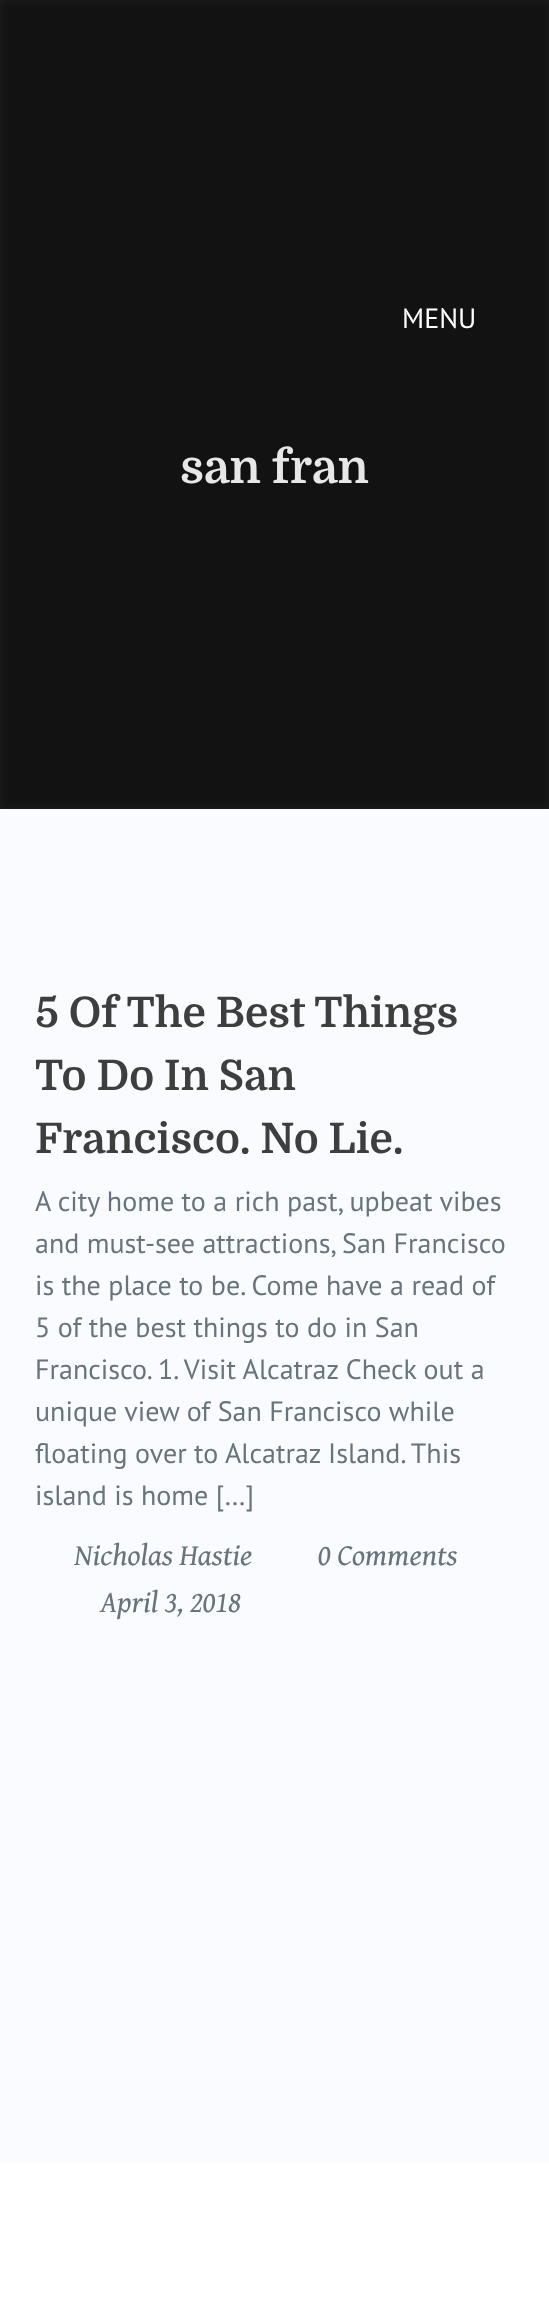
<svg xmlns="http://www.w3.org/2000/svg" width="549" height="2310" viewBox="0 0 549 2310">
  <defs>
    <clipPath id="clip1"><rect x="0" y="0" width="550" height="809"/></clipPath>
    <filter id="blur1" x="-50%" y="-200%" width="200%" height="500%"><feGaussianBlur stdDeviation="5"/></filter>
  </defs>
  <rect width="100%" height="100%" fill="#ffffff"/>
  <rect x="0" y="0" width="549" height="809" fill="#1e1e1e"/>
  <rect x="0" y="809" width="549" height="1354" fill="#f9fbff"/>
  <g clip-path="url(#clip1)">
    <rect x="0" y="0" width="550" height="809" fill="#000000" fill-opacity="0.4" filter="url(#blur1)"/>
  </g>
  <text x="402" y="328" font-family="PT Sans" font-size="28" fill="#ffffff">MENU</text>
  <text x="180" y="483" font-family="Domine" font-size="46.5" font-weight="bold" fill="#e7e7e7">san fran</text>
  <text x="35" y="1027" font-family="Domine" font-size="42" font-weight="bold" fill="#3e3e3e">5 Of The Best Things</text>
  <text x="35" y="1090" font-family="Domine" font-size="42" font-weight="bold" fill="#3e3e3e">To Do In San</text>
  <text x="35" y="1153" font-family="Domine" font-size="42" font-weight="bold" fill="#3e3e3e">Francisco. No Lie.</text>
  <text x="35" y="1211" font-family="PT Sans" font-size="28" fill="#67747c">A city home to a rich past, upbeat vibes</text>
  <text x="35" y="1253" font-family="PT Sans" font-size="28" fill="#67747c">and must-see attractions, San Francisco</text>
  <text x="35" y="1295" font-family="PT Sans" font-size="28" fill="#67747c">is the place to be. Come have a read of</text>
  <text x="35" y="1337" font-family="PT Sans" font-size="28" fill="#67747c">5 of the best things to do in San</text>
  <text x="35" y="1379" font-family="PT Sans" font-size="28" fill="#67747c">Francisco. 1. Visit Alcatraz Check out a</text>
  <text x="35" y="1421" font-family="PT Sans" font-size="28" fill="#67747c">unique view of San Francisco while</text>
  <text x="35" y="1463" font-family="PT Sans" font-size="28" fill="#67747c">floating over to Alcatraz Island. This</text>
  <text x="35" y="1505" font-family="PT Sans" font-size="28" fill="#67747c">island is home […]</text>
  <text x="74" y="1565" font-family="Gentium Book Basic" font-size="30.25" font-style="italic" fill="#67747c">Nicholas Hastie</text>
  <text x="318" y="1565" font-family="Gentium Book Basic" font-size="30.25" font-style="italic" fill="#67747c">0 Comments</text>
  <text x="100" y="1612" font-family="Gentium Book Basic" font-size="30.25" font-style="italic" fill="#67747c">April 3, 2018</text>
</svg>
